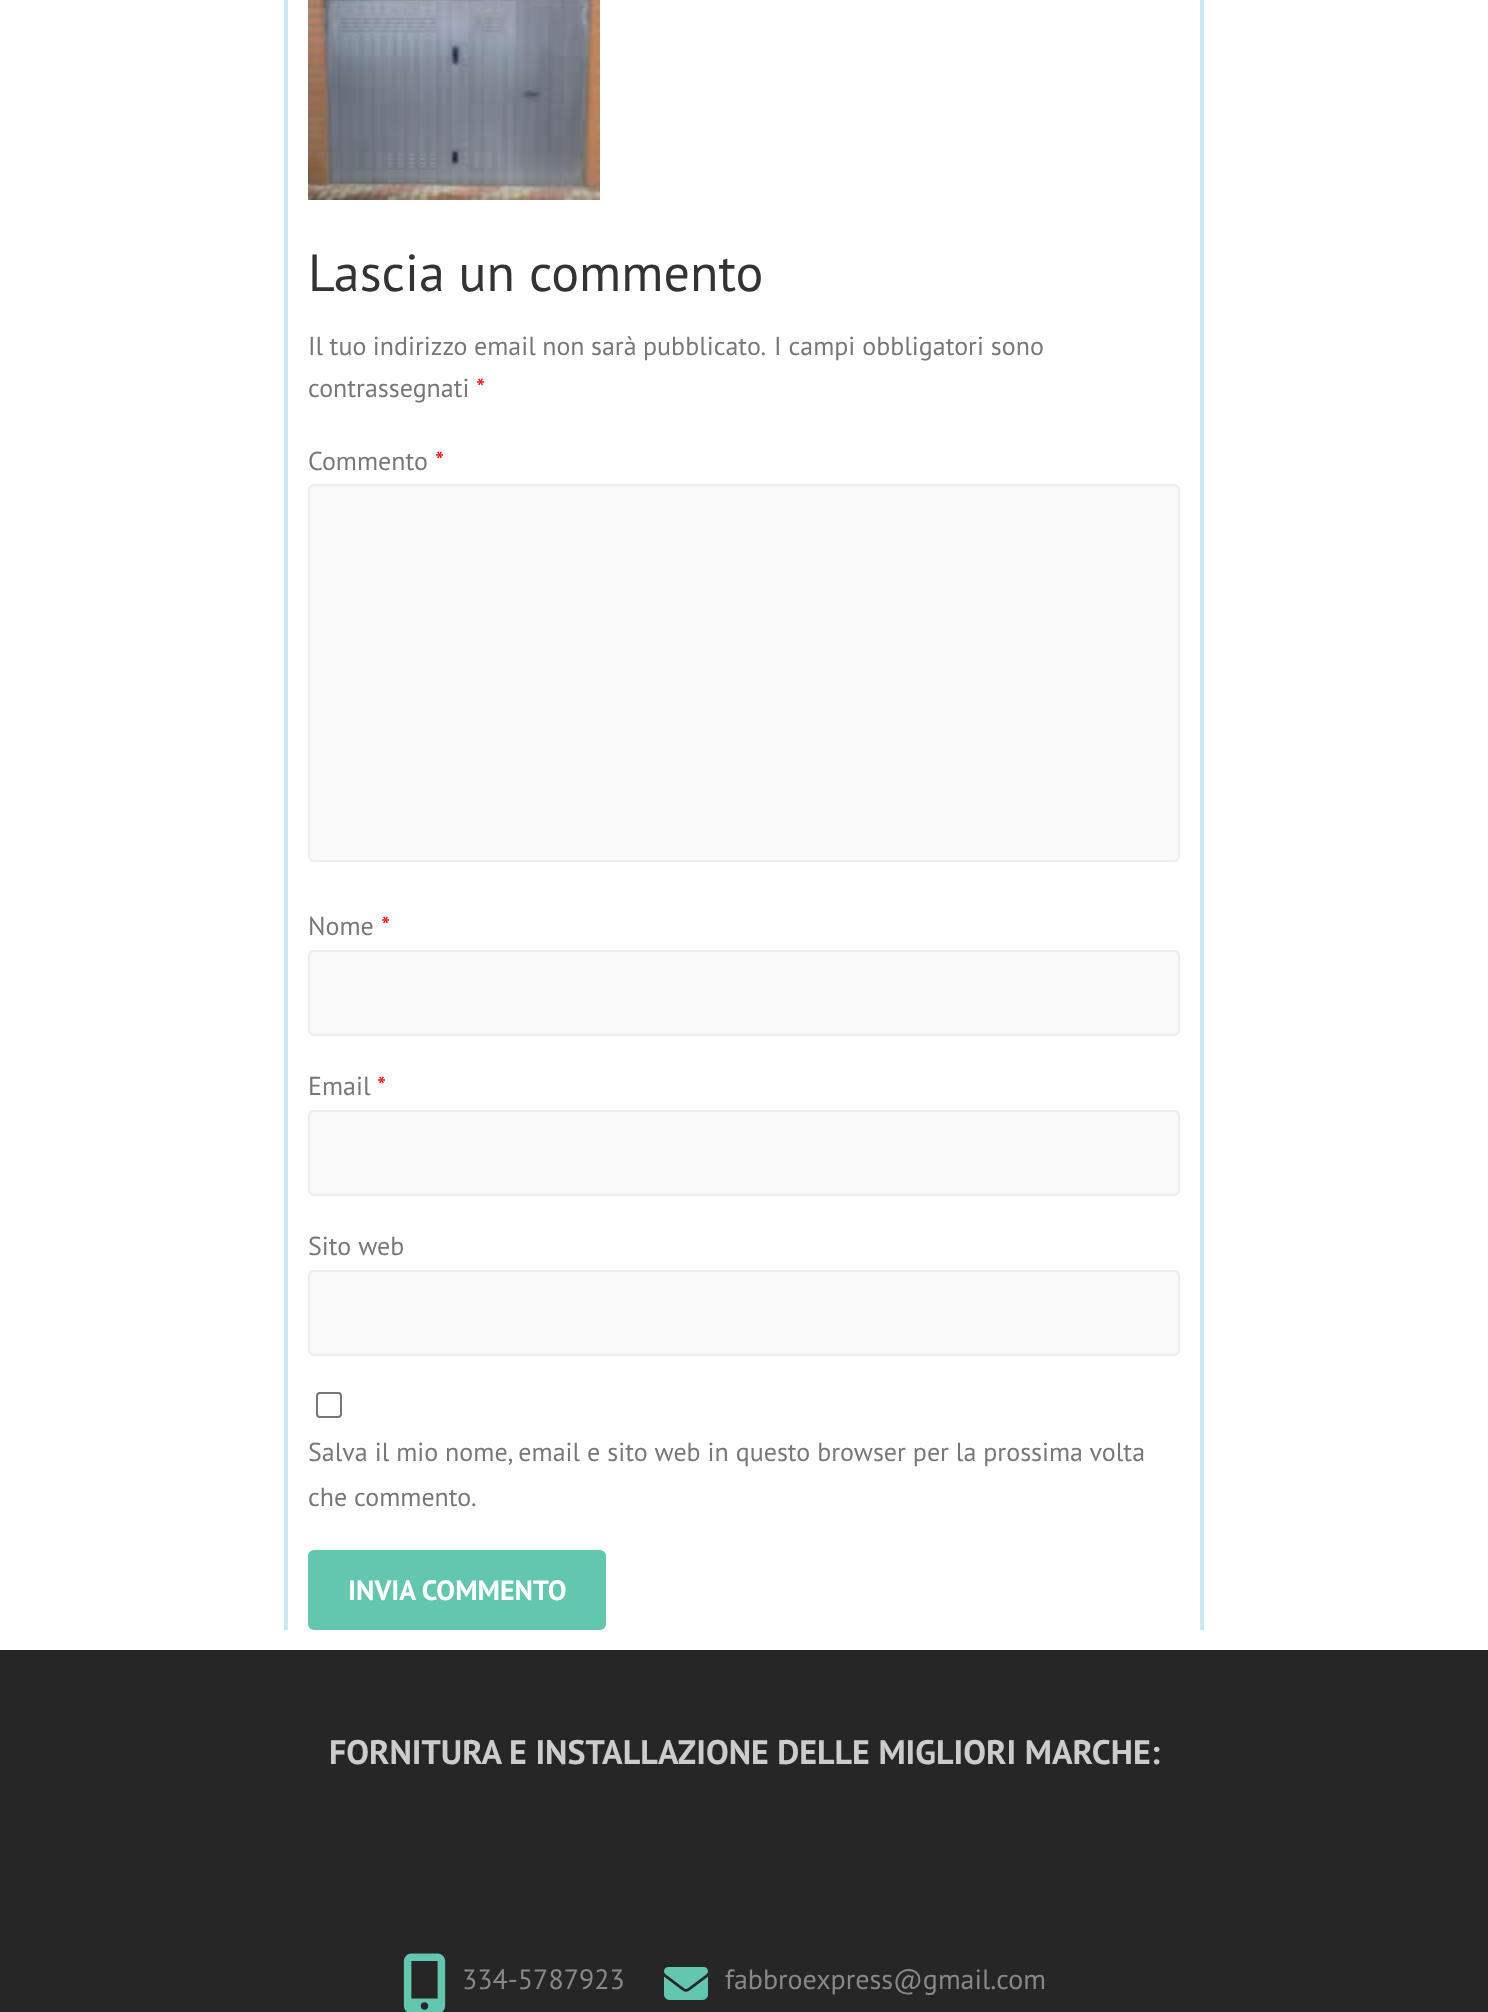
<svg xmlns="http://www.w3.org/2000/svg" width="1488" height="2012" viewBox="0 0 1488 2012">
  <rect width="100%" height="100%" fill="#ffffff"/>
  <rect x="1200" y="0" width="4" height="1630" fill="#cde7f4"/>
  <rect x="284" y="0" width="4" height="1630" fill="#cde7f4"/>
  <image x="308" y="0" width="292" height="200" href="img1.png"/>
  <text x="308" y="291" font-family="PT Sans" font-size="52" fill="#333333">Lascia un commento</text>
  <text x="308" y="355" word-spacing="-0.5" font-family="PT Sans" font-size="26" fill="#777777">Il tuo indirizzo email non sarà pubblicato.</text>
  <text x="774" y="355" font-family="PT Sans" font-size="26" fill="#777777">I campi obbligatori sono</text>
  <text x="308" y="397" font-family="PT Sans" font-size="26" fill="#777777">contrassegnati</text>
  <text x="476" y="397" font-family="PT Sans" font-size="26" fill="#ff0000">*</text>
  <text x="308" y="470" font-family="PT Sans" font-size="26" fill="#777777">Commento</text>
  <text x="435" y="470" font-family="PT Sans" font-size="26" fill="#ff0000">*</text>
  <rect x="309" y="485" width="870" height="376" rx="5" fill="#f9f9f9" stroke="#ededed" stroke-width="2"/>
  <text x="308" y="935" font-family="PT Sans" font-size="26" fill="#777777">Nome</text>
  <text x="381" y="935" font-family="PT Sans" font-size="26" fill="#ff0000">*</text>
  <rect x="309" y="951" width="870" height="84" rx="5" fill="#f9f9f9" stroke="#ededed" stroke-width="2"/>
  <text x="308" y="1095" font-family="PT Sans" font-size="26" fill="#777777">Email</text>
  <text x="377" y="1095" font-family="PT Sans" font-size="26" fill="#ff0000">*</text>
  <rect x="309" y="1111" width="870" height="84" rx="5" fill="#f9f9f9" stroke="#ededed" stroke-width="2"/>
  <text x="308" y="1255" font-family="PT Sans" font-size="26" fill="#777777">Sito web</text>
  <rect x="309" y="1271" width="870" height="84" rx="5" fill="#f9f9f9" stroke="#ededed" stroke-width="2"/>
  <rect x="317" y="1393" width="24" height="24" rx="3" fill="none" stroke="#767676" stroke-width="2"/>
  <text x="308" y="1461" font-family="PT Sans" font-size="26" fill="#777777">Salva il mio nome, email e sito web in questo browser per la prossima volta</text>
  <text x="308" y="1506" font-family="PT Sans" font-size="26" fill="#777777">che commento.</text>
  <rect x="308" y="1550" width="298" height="80" rx="6" fill="#63c6ae"/>
  <text x="348" y="1600" font-family="PT Sans" font-size="28" font-weight="bold" fill="#ffffff">INVIA COMMENTO</text>
  <rect x="0" y="1650" width="1488" height="362" fill="#262626"/>
  <text x="329" y="1764" font-family="PT Sans" font-size="34" font-weight="bold" fill="#cccccc">FORNITURA E INSTALLAZIONE DELLE MIGLIORI MARCHE:</text>
  <image x="403" y="1953" width="43" height="59" href="img2.png"/>
  <text x="462" y="1989" font-family="PT Sans" font-size="28" fill="#888888">334-5787923</text>
  <image x="664" y="1967" width="44" height="33" href="img3.png"/>
  <text x="725" y="1989" font-family="PT Sans" font-size="28" fill="#888888">fabbroexpress@gmail.com</text>
</svg>
